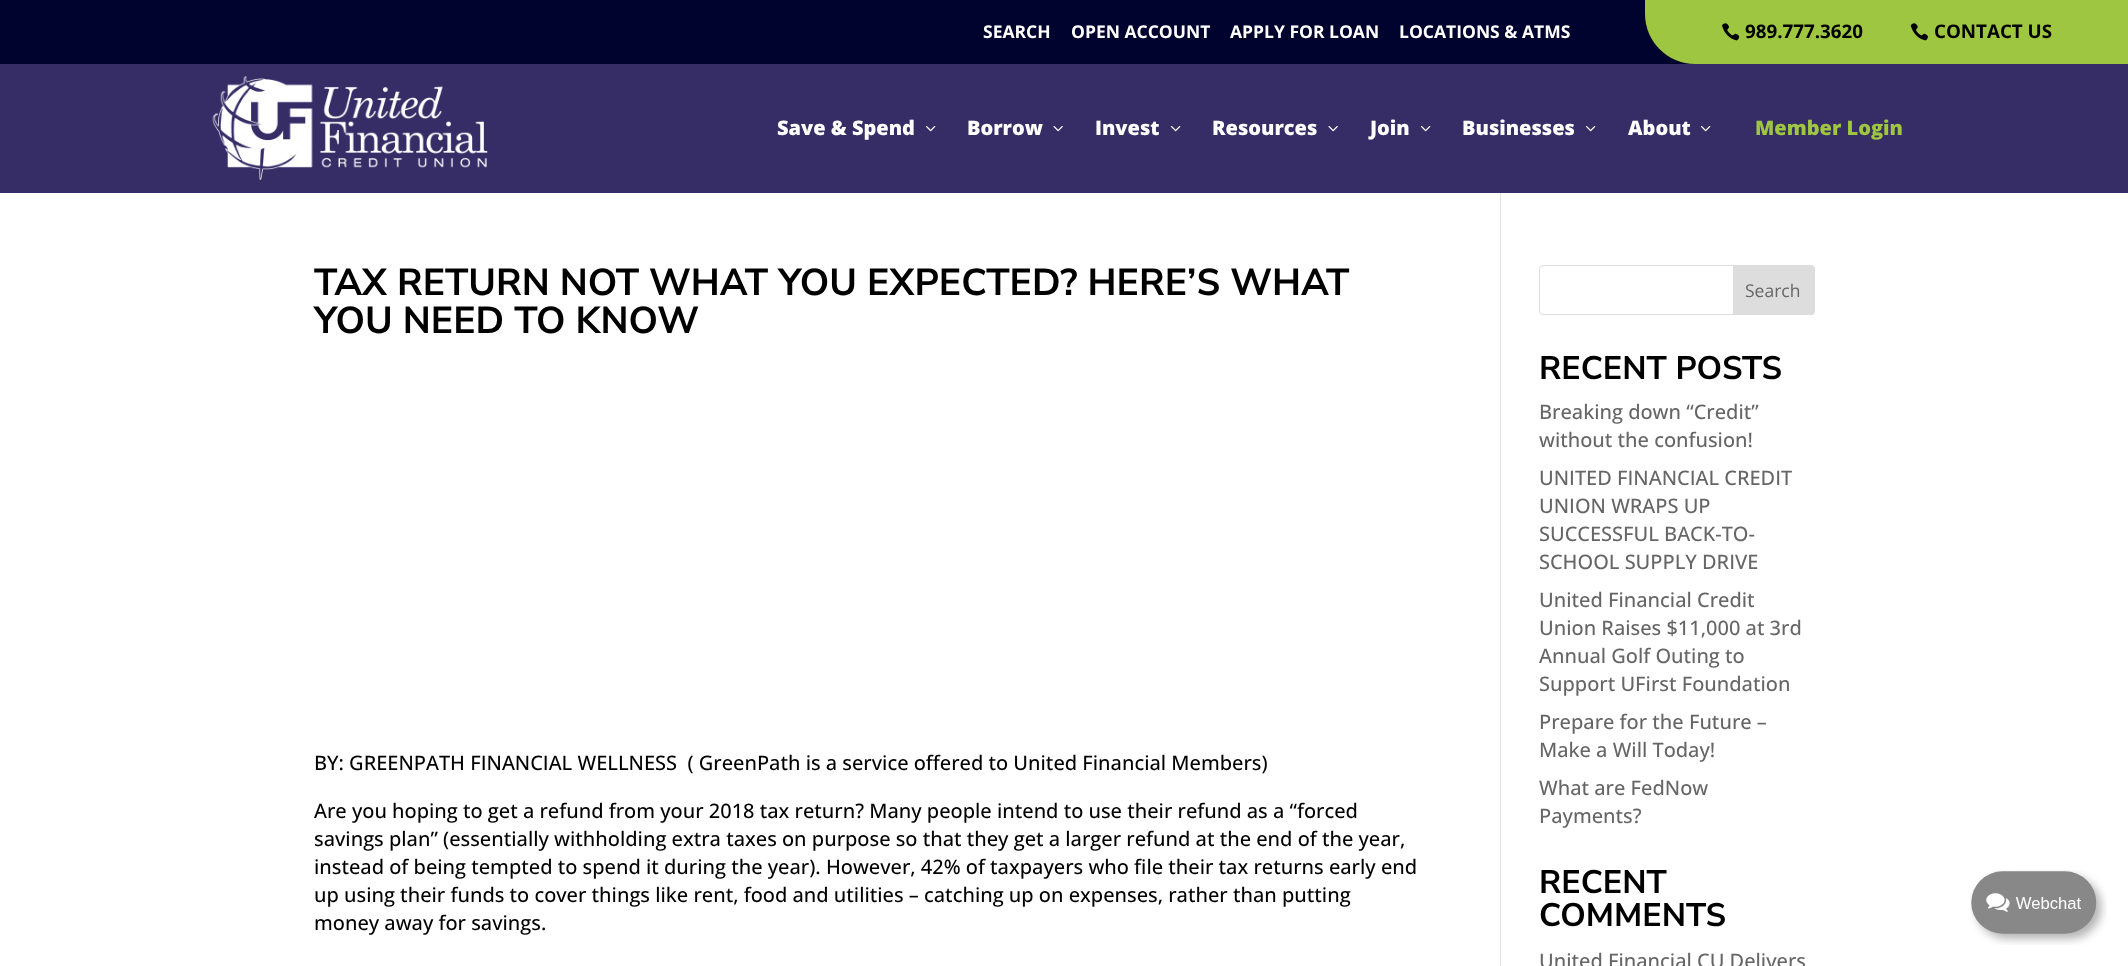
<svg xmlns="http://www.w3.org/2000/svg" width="2128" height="966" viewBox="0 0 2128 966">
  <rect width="100%" height="100%" fill="#ffffff"/>
  <rect x="0" y="0" width="1695" height="64" fill="#00032d"/>
  <text x="983" y="38" font-family="Open Sans" font-size="17.5" font-weight="bold" fill="#ffffff">SEARCH</text>
  <text x="1071" y="38" font-family="Open Sans" font-size="17.5" font-weight="bold" fill="#ffffff">OPEN ACCOUNT</text>
  <text x="1230" y="38" font-family="Open Sans" font-size="17.5" font-weight="bold" fill="#ffffff">APPLY FOR LOAN</text>
  <text x="1399" y="38" font-family="Open Sans" font-size="17.5" font-weight="bold" fill="#ffffff">LOCATIONS &amp; ATMS</text>
  <path d="M1645 0H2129V64H1695C1667.5 64 1645 41.5 1645 14Z" fill="#9ec640"/>
  <image x="1722" y="23" width="18" height="18" href="img1.png"/>
  <text x="1745" y="38" font-family="Open Sans" font-size="18.75" font-weight="bold" fill="#000000">989.777.3620</text>
  <image x="1910" y="23" width="18" height="18" href="img2.png"/>
  <text x="1934" y="38" font-family="Open Sans" font-size="18.75" font-weight="bold" fill="#000000">CONTACT US</text>
  <rect x="0" y="64" width="2128" height="129" fill="#362c66"/>
  <image x="212" y="76" width="276" height="104" href="img3.png"/>
  <text x="777" y="135" font-family="Open Sans" font-size="20" font-weight="800" fill="#ffffff">Save &amp; Spend</text>
  <image x="926" y="126" width="10" height="6" href="img4.png"/>
  <text x="967" y="135" font-family="Open Sans" font-size="20" font-weight="800" fill="#ffffff">Borrow</text>
  <image x="1053" y="126" width="10" height="6" href="img5.png"/>
  <text x="1095" y="135" font-family="Open Sans" font-size="20" font-weight="800" fill="#ffffff">Invest</text>
  <image x="1171" y="126" width="10" height="6" href="img4.png"/>
  <text x="1212" y="135" font-family="Open Sans" font-size="20" font-weight="800" fill="#ffffff">Resources</text>
  <image x="1328" y="126" width="10" height="6" href="img5.png"/>
  <text x="1370" y="135" font-family="Open Sans" font-size="20" font-weight="800" fill="#ffffff">Join</text>
  <image x="1421" y="126" width="10" height="6" href="img4.png"/>
  <text x="1462" y="135" font-family="Open Sans" font-size="20" font-weight="800" fill="#ffffff">Businesses</text>
  <image x="1586" y="126" width="10" height="6" href="img4.png"/>
  <text x="1628" y="135" font-family="Open Sans" font-size="20" font-weight="800" fill="#ffffff">About</text>
  <image x="1701" y="126" width="10" height="6" href="img4.png"/>
  <text x="1755" y="135" font-family="Open Sans" font-size="20" font-weight="800" fill="#9ec640">Member Login</text>
  <rect x="1500" y="193" width="1" height="773" fill="#e2e2e2"/>
  <text x="314" y="295" font-family="Nunito Sans" font-size="37.5" font-weight="bold" fill="#000000">TAX RETURN NOT WHAT YOU EXPECTED? HERE’S WHAT</text>
  <text x="314" y="333" font-family="Nunito Sans" font-size="37.5" font-weight="bold" fill="#000000">YOU NEED TO KNOW</text>
  <text x="314" y="770" font-family="Open Sans" font-size="20" font-weight="500" fill="#000000" xml:space="preserve">BY: GREENPATH FINANCIAL WELLNESS  ( GreenPath is a service offered to United Financial Members)</text>
  <text x="314" y="818" font-family="Open Sans" font-size="20" font-weight="500" fill="#000000">Are you hoping to get a refund from your 2018 tax return? Many people intend to use their refund as a “forced</text>
  <text x="314" y="846" font-family="Open Sans" font-size="20" font-weight="500" fill="#000000">savings plan” (essentially withholding extra taxes on purpose so that they get a larger refund at the end of the year,</text>
  <text x="314" y="874" font-family="Open Sans" font-size="20" font-weight="500" fill="#000000">instead of being tempted to spend it during the year). However, 42% of taxpayers who file their tax returns early end</text>
  <text x="314" y="902" font-family="Open Sans" font-size="20" font-weight="500" fill="#000000">up using their funds to cover things like rent, food and utilities – catching up on expenses, rather than putting</text>
  <text x="314" y="930" font-family="Open Sans" font-size="20" font-weight="500" fill="#000000">money away for savings.</text>
  <rect x="1539.5" y="265.5" width="275" height="49" rx="3.5" fill="none" stroke="#dddddd"/>
  <path d="M1733.5 265.5H1811C1813 265.5 1814.5 267 1814.5 269V311C1814.5 313 1813 314.5 1811 314.5H1733.5Z" fill="#dddddd" stroke="#dddddd"/>
  <text x="1745" y="297" font-family="Open Sans" font-size="17.5" fill="#666666">Search</text>
  <text x="1539" y="379" font-family="Nunito Sans" font-size="32.5" font-weight="bold" fill="#000000">RECENT POSTS</text>
  <text x="1539" y="419" font-family="Open Sans" font-size="20" font-weight="500" fill="#666666">Breaking down “Credit”</text>
  <text x="1539" y="447" font-family="Open Sans" font-size="20" font-weight="500" fill="#666666">without the confusion!</text>
  <text x="1539" y="485" font-family="Open Sans" font-size="20" font-weight="500" fill="#666666">UNITED FINANCIAL CREDIT</text>
  <text x="1539" y="513" font-family="Open Sans" font-size="20" font-weight="500" fill="#666666">UNION WRAPS UP</text>
  <text x="1539" y="541" font-family="Open Sans" font-size="20" font-weight="500" fill="#666666">SUCCESSFUL BACK-TO-</text>
  <text x="1539" y="569" font-family="Open Sans" font-size="20" font-weight="500" fill="#666666">SCHOOL SUPPLY DRIVE</text>
  <text x="1539" y="607" font-family="Open Sans" font-size="20" font-weight="500" fill="#666666">United Financial Credit</text>
  <text x="1539" y="635" font-family="Open Sans" font-size="20" font-weight="500" fill="#666666">Union Raises $11,000 at 3rd</text>
  <text x="1539" y="663" font-family="Open Sans" font-size="20" font-weight="500" fill="#666666">Annual Golf Outing to</text>
  <text x="1539" y="691" font-family="Open Sans" font-size="20" font-weight="500" fill="#666666">Support UFirst Foundation</text>
  <text x="1539" y="729" font-family="Open Sans" font-size="20" font-weight="500" fill="#666666">Prepare for the Future –</text>
  <text x="1539" y="757" font-family="Open Sans" font-size="20" font-weight="500" fill="#666666">Make a Will Today!</text>
  <text x="1539" y="795" font-family="Open Sans" font-size="20" font-weight="500" fill="#666666">What are FedNow</text>
  <text x="1539" y="823" font-family="Open Sans" font-size="20" font-weight="500" fill="#666666">Payments?</text>
  <text x="1539" y="893" font-family="Nunito Sans" font-size="32.5" font-weight="bold" fill="#000000">RECENT</text>
  <text x="1539" y="926" font-family="Nunito Sans" font-size="32.5" font-weight="bold" fill="#000000">COMMENTS</text>
  <text x="1539" y="968" font-family="Open Sans" font-size="20" font-weight="500" fill="#666666">United Financial CU Delivers</text>
  <image x="1970" y="870" width="137" height="75" href="img6.png"/>
</svg>
